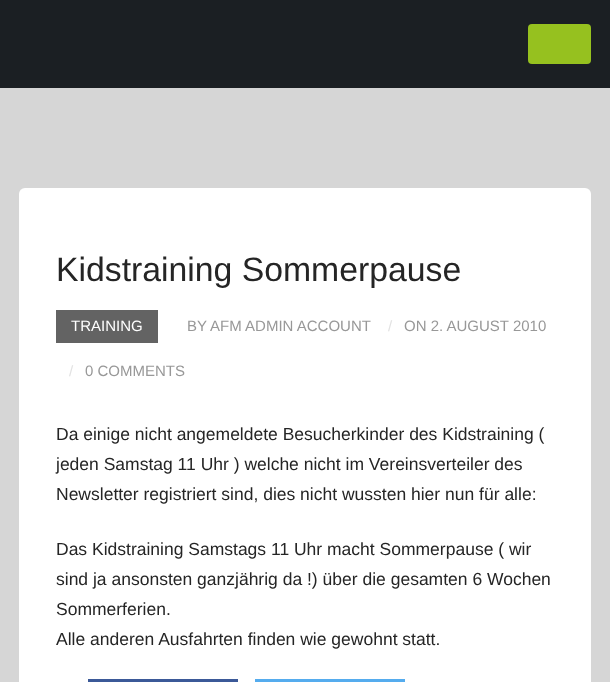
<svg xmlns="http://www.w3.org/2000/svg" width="610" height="682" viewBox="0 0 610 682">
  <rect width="100%" height="100%" fill="#d6d6d6"/>
  <rect x="0" y="0" width="610" height="88" fill="#1b1f23"/>
  <rect x="528" y="24" width="63" height="40" rx="4" fill="#96c11f"/>
  <rect x="19" y="188" width="572" height="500" rx="6" fill="#ffffff"/>
  <text x="56" y="281" font-family="Liberation Sans" font-size="33.75" fill="#252525">Kidstraining Sommerpause</text>
  <rect x="56" y="310" width="102" height="33" fill="#636363"/>
  <text x="71" y="331" font-family="Liberation Sans" font-size="15" fill="#ffffff">TRAINING</text>
  <text x="187" y="331" font-family="Liberation Sans" font-size="15" fill="#989898">BY AFM ADMIN ACCOUNT</text>
  <text x="388" y="331" font-family="Liberation Sans" font-size="15" fill="#e2e2e2">/</text>
  <text x="404" y="331" font-family="Liberation Sans" font-size="15" fill="#989898">ON 2. AUGUST 2010</text>
  <text x="69" y="376" font-family="Liberation Sans" font-size="15" fill="#e2e2e2">/</text>
  <text x="85" y="376" font-family="Liberation Sans" font-size="15" fill="#989898">0 COMMENTS</text>
  <text x="56" y="440" font-family="Liberation Sans" font-size="17.5" fill="#252525">Da einige nicht angemeldete Besucherkinder des Kidstraining (</text>
  <text x="56" y="470" font-family="Liberation Sans" font-size="17.5" fill="#252525">jeden Samstag 11 Uhr ) welche nicht im Vereinsverteiler des</text>
  <text x="56" y="500" font-family="Liberation Sans" font-size="17.5" fill="#252525">Newsletter registriert sind, dies nicht wussten hier nun für alle:</text>
  <text x="56" y="555" font-family="Liberation Sans" font-size="17.5" fill="#252525">Das Kidstraining Samstags 11 Uhr macht Sommerpause ( wir</text>
  <text x="56" y="585" font-family="Liberation Sans" font-size="17.5" fill="#252525">sind ja ansonsten ganzjährig da !) über die gesamten 6 Wochen</text>
  <text x="56" y="615" font-family="Liberation Sans" font-size="17.5" fill="#252525">Sommerferien.</text>
  <text x="56" y="645" font-family="Liberation Sans" font-size="17.5" fill="#252525">Alle anderen Ausfahrten finden wie gewohnt statt.</text>
  <rect x="88" y="679" width="150" height="3" fill="#3b5998"/>
  <rect x="255" y="679" width="150" height="3" fill="#55acee"/>
</svg>
